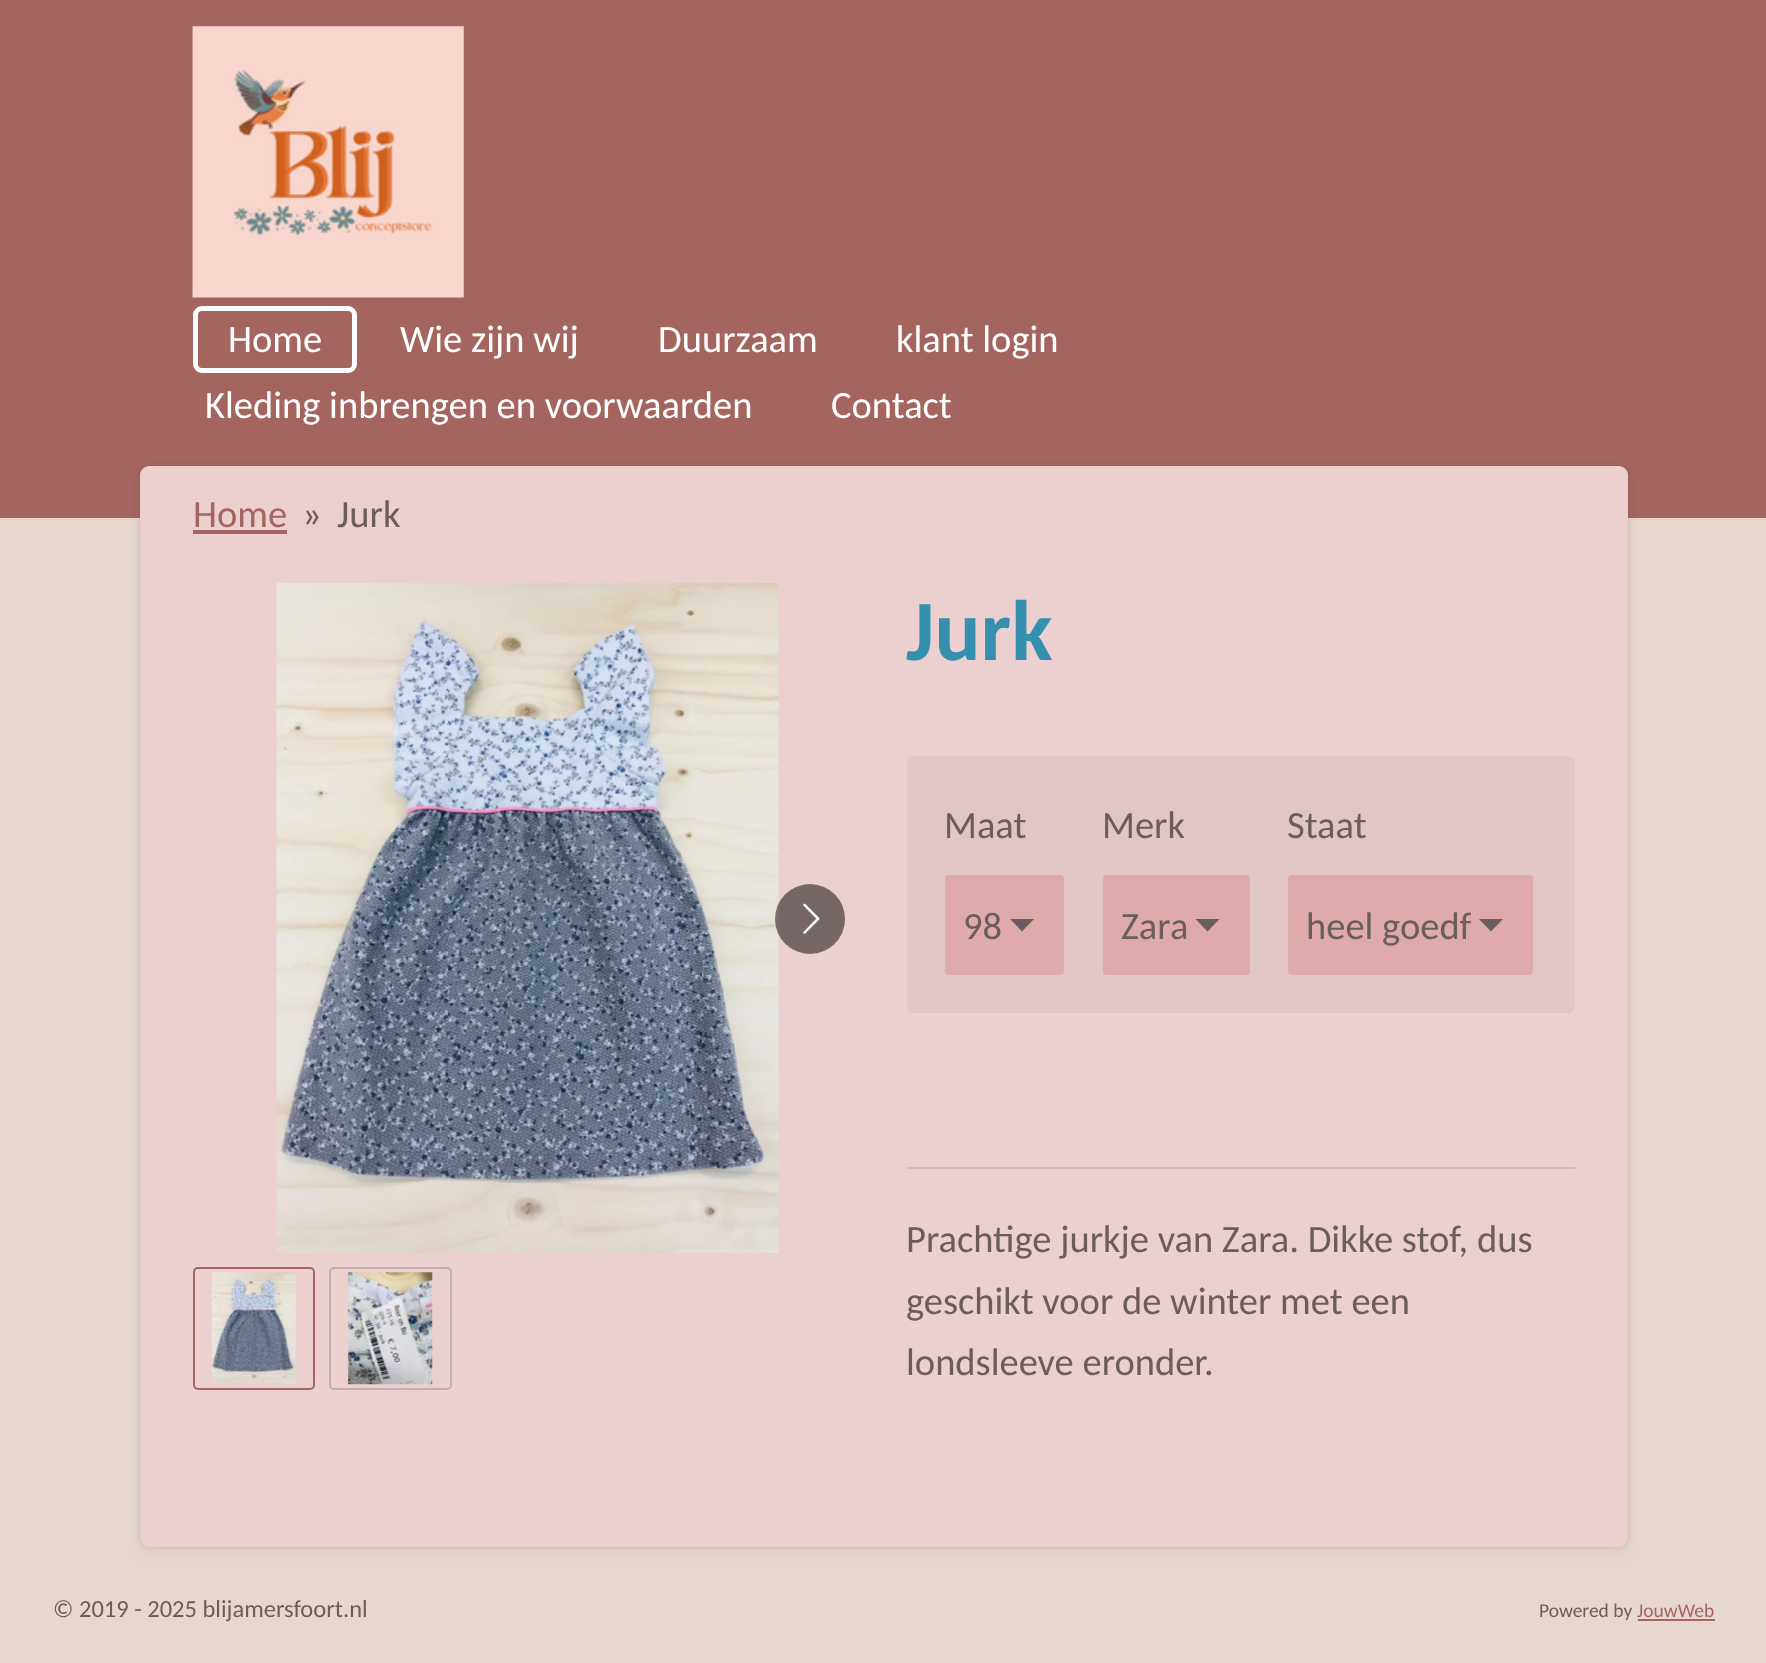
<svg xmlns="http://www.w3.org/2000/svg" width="1766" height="1663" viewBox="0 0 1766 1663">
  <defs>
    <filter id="blur1" x="-50%" y="-200%" width="200%" height="500%"><feGaussianBlur stdDeviation="2"/></filter>
    <filter id="blur2" x="-50%" y="-200%" width="200%" height="500%"><feGaussianBlur stdDeviation="7"/></filter>
  </defs>
  <rect width="100%" height="100%" fill="#e7d8cf"/>
  <rect x="0" y="0" width="1766" height="518" fill="#a5655f"/>
  <image x="192" y="26" width="272" height="272" href="img1.png"/>
  <rect x="195.5" y="308.5" width="159" height="62" rx="6.5" fill="none" stroke="#ffffff" stroke-width="5"/>
  <text x="228" y="352" font-family="Carlito" font-size="38.5" fill="#ffffff">Home</text>
  <text x="400" y="352" font-family="Carlito" font-size="38.5" fill="#ffffff">Wie zijn wij</text>
  <text x="658" y="352" font-family="Carlito" font-size="38.5" fill="#ffffff">Duurzaam</text>
  <text x="896" y="352" font-family="Carlito" font-size="38.5" fill="#ffffff">klant login</text>
  <text x="205" y="418" font-family="Carlito" font-size="38.5" fill="#ffffff">Kleding inbrengen en voorwaarden</text>
  <text x="831" y="418" font-family="Carlito" font-size="38.5" fill="#ffffff">Contact</text>
  <rect x="140" y="466" width="1488" height="1081" rx="9" fill="#000000" fill-opacity="0.1" filter="url(#blur1)"/>
  <rect x="140" y="469" width="1488" height="1082" rx="9" fill="#000000" fill-opacity="0.07" filter="url(#blur2)"/>
  <rect x="140" y="466" width="1488" height="1081" rx="9" fill="#eccfcf"/>
  <text x="193" y="527" font-family="Carlito" font-size="38.5" fill="#a5655f">Home</text>
  <rect x="193" y="530" width="94" height="4" fill="#a5655f"/>
  <text x="302" y="527" font-family="Carlito" font-size="38.5" fill="#6a5d5d">»</text>
  <text x="337" y="527" font-family="Carlito" font-size="38.5" fill="#6a5d5d">Jurk</text>
  <image x="276" y="583" width="503" height="670" href="img2.png"/>
  <circle cx="810" cy="919" r="35" fill="#000000" fill-opacity="0.5"/>
  <image x="803" y="903" width="17" height="31" href="img3.png"/>
  <rect x="194" y="1268" width="120" height="121" rx="4" fill="none" stroke="#a5655f" stroke-width="2"/>
  <image x="211" y="1272" width="85" height="113" href="img4.png"/>
  <rect x="330" y="1268" width="121" height="121" rx="4" fill="none" stroke="#c5adad" stroke-width="2"/>
  <image x="348" y="1272" width="85" height="113" href="img5.png"/>
  <text x="906" y="660" font-family="Carlito" font-size="86" font-weight="bold" fill="#3490ae">Jurk</text>
  <rect x="907" y="756" width="668" height="257" rx="7" fill="#e2c6c6"/>
  <text x="944" y="838" font-family="Carlito" font-size="38.5" fill="#6a5d5d">Maat</text>
  <rect x="945" y="875" width="119" height="100" rx="4" fill="#deaaaa"/>
  <path d="M1022 931.5L1010 919H1034Z" fill="#6a5d5d"/>
  <text x="963" y="939" font-family="Carlito" font-size="38.5" fill="#6a5d5d">98</text>
  <text x="1102" y="838" font-family="Carlito" font-size="38.5" fill="#6a5d5d">Merk</text>
  <rect x="1103" y="875" width="147" height="100" rx="4" fill="#deaaaa"/>
  <path d="M1207.5 931.5L1195.5 919H1219.5Z" fill="#6a5d5d"/>
  <text x="1121" y="939" font-family="Carlito" font-size="38.5" fill="#6a5d5d">Zara</text>
  <text x="1287" y="838" font-family="Carlito" font-size="38.5" fill="#6a5d5d">Staat</text>
  <rect x="1288" y="875" width="245" height="100" rx="4" fill="#deaaaa"/>
  <path d="M1491 931.5L1479 919H1503Z" fill="#6a5d5d"/>
  <text x="1306" y="939" font-family="Carlito" font-size="38.5" fill="#6a5d5d">heel goedf</text>
  <rect x="907" y="1167" width="668" height="2" fill="#d2b8b8"/>
  <text x="906" y="1252" font-family="Carlito" font-size="38.5" fill="#6a5d5d">Prachtige jurkje van Zara. Dikke stof, dus</text>
  <text x="906" y="1314" font-family="Carlito" font-size="38.5" fill="#6a5d5d">geschikt voor de winter met een</text>
  <text x="906" y="1375" font-family="Carlito" font-size="38.5" fill="#6a5d5d">londsleeve eronder.</text>
  <text x="53" y="1617" font-family="Carlito" font-size="24.5" fill="#6a5d5d">© 2019 - 2025 blijamersfoort.nl</text>
  <text x="1539" y="1617" font-family="Carlito" font-size="19.5" fill="#6a5d5d">Powered by</text>
  <text x="1637" y="1617" font-family="Carlito" font-size="19.5" fill="#a5655f">JouwWeb</text>
  <rect x="1638" y="1619" width="77" height="2" fill="#a5655f"/>
</svg>
